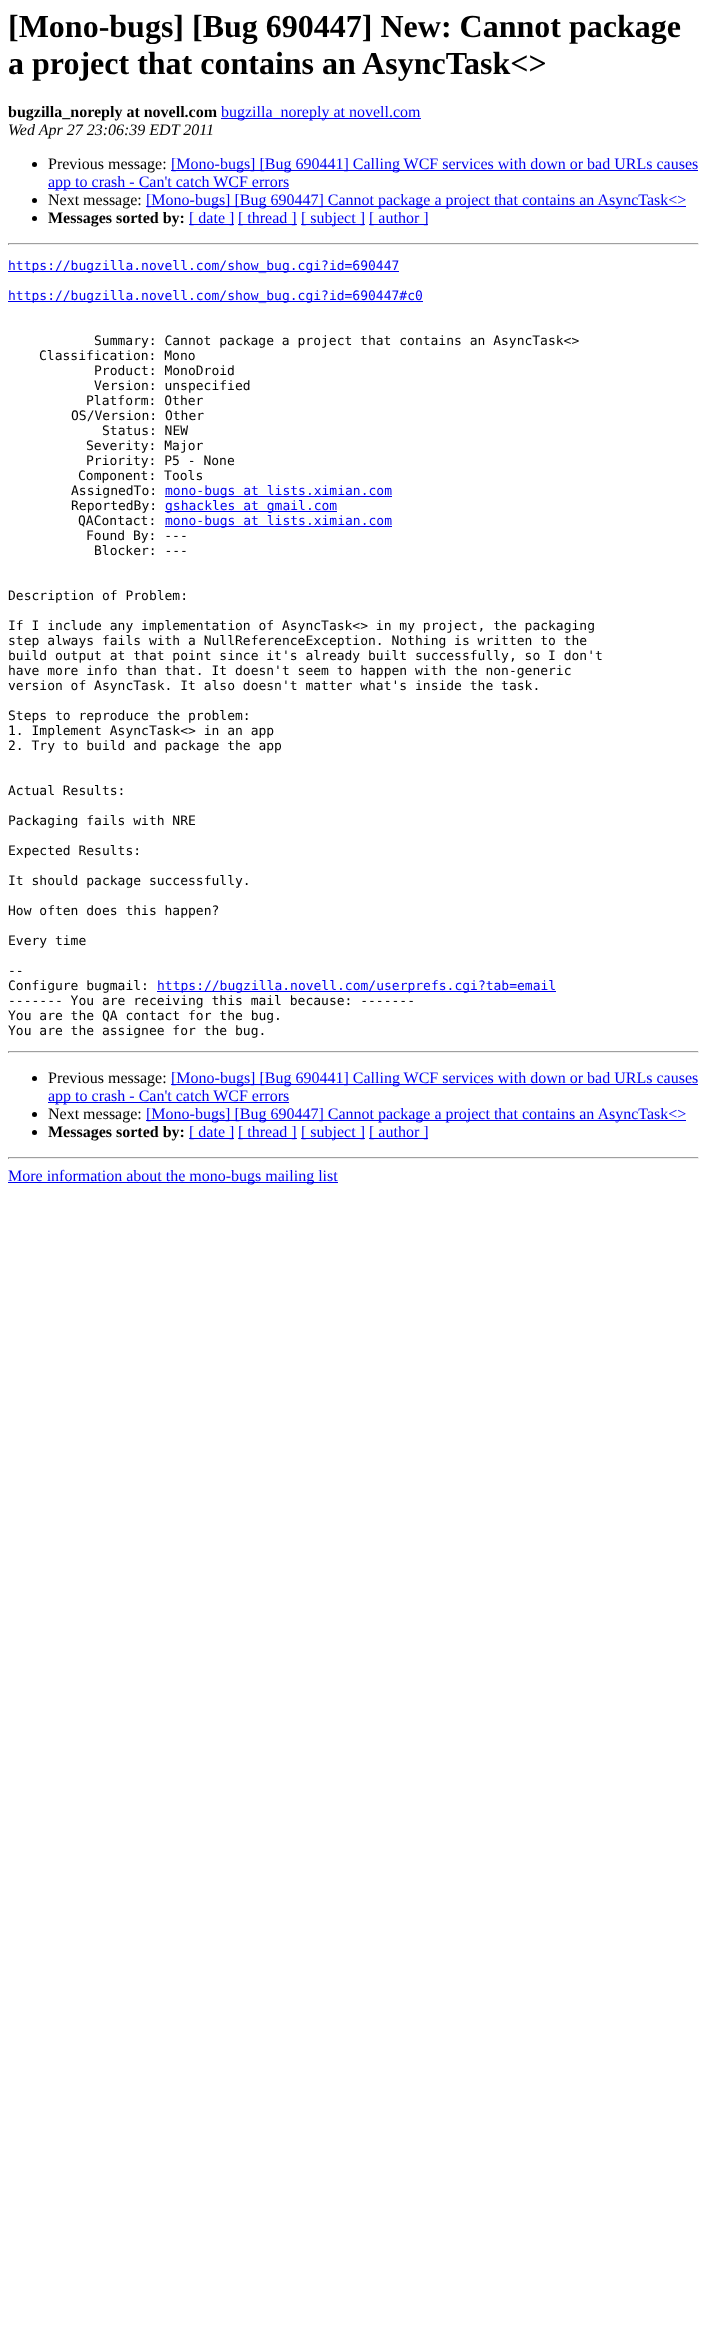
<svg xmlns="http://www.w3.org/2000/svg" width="707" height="2326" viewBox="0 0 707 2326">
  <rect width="100%" height="100%" fill="#ffffff"/>
  <text x="8" y="37" font-family="Liberation Serif" font-size="32" font-weight="bold" fill="#000000">[Mono-bugs] [Bug 690447] New: Cannot package</text>
  <text x="8" y="74" font-family="Liberation Serif" font-size="32" font-weight="bold" fill="#000000">a project that contains an AsyncTask&lt;&gt;</text>
  <text x="8" y="117" font-family="Liberation Serif" font-size="16" font-weight="bold" fill="#000000">bugzilla_noreply at novell.com</text>
  <rect x="221" y="118" width="200" height="1" fill="#0000ee"/>
  <text x="221" y="117" font-family="Liberation Serif" font-size="16" fill="#0000ee">bugzilla_noreply at novell.com</text>
  <text x="8" y="135" font-family="Liberation Serif" font-size="16" font-style="italic" fill="#000000">Wed Apr 27 23:06:39 EDT 2011</text>
  <circle cx="34.5" cy="164.5" r="2.5" fill="#000000"/>
  <text x="48" y="169" font-family="Liberation Serif" font-size="16" fill="#000000">Previous message:</text>
  <rect x="171" y="170" width="527" height="1" fill="#0000ee"/>
  <text x="171" y="169" font-family="Liberation Serif" font-size="16" fill="#0000ee">[Mono-bugs] [Bug 690441] Calling WCF services with down or bad URLs causes</text>
  <rect x="48" y="188" width="241" height="1" fill="#0000ee"/>
  <text x="48" y="187" font-family="Liberation Serif" font-size="16" fill="#0000ee">app to crash - Can't catch WCF errors</text>
  <circle cx="34.5" cy="200.5" r="2.5" fill="#000000"/>
  <text x="48" y="205" font-family="Liberation Serif" font-size="16" fill="#000000">Next message:</text>
  <rect x="146" y="206" width="540" height="1" fill="#0000ee"/>
  <text x="146" y="205" font-family="Liberation Serif" font-size="16" fill="#0000ee">[Mono-bugs] [Bug 690447] Cannot package a project that contains an AsyncTask&lt;&gt;</text>
  <circle cx="34.5" cy="218.5" r="2.5" fill="#000000"/>
  <text x="48" y="223" font-family="Liberation Serif" font-size="16" font-weight="bold" fill="#000000">Messages sorted by:</text>
  <rect x="189" y="224" width="45" height="1" fill="#0000ee"/>
  <text x="189" y="223" font-family="Liberation Serif" font-size="16" fill="#0000ee">[ date ]</text>
  <rect x="238" y="224" width="59" height="1" fill="#0000ee"/>
  <text x="238" y="223" font-family="Liberation Serif" font-size="16" fill="#0000ee">[ thread ]</text>
  <rect x="301" y="224" width="64" height="1" fill="#0000ee"/>
  <text x="301" y="223" font-family="Liberation Serif" font-size="16" fill="#0000ee">[ subject ]</text>
  <rect x="369" y="224" width="59" height="1" fill="#0000ee"/>
  <text x="369" y="223" font-family="Liberation Serif" font-size="16" fill="#0000ee">[ author ]</text>
  <rect x="8" y="243" width="691" height="1" fill="#9f9f9f"/>
  <rect x="698" y="243" width="1" height="2" fill="#eeeeee"/>
  <rect x="8" y="244" width="691" height="1" fill="#eeeeee"/>
  <rect x="8" y="243" width="1" height="2" fill="#9f9f9f"/>
  <rect x="8" y="271" width="391" height="1" fill="#0000ee"/>
  <text x="8" y="270" font-family="DejaVu Sans Mono" font-size="13" fill="#0000ee">https://bugzilla.novell.com/show_bug.cgi?id=690447</text>
  <rect x="8" y="301" width="415" height="1" fill="#0000ee"/>
  <text x="8" y="300" font-family="DejaVu Sans Mono" font-size="13" fill="#0000ee">https://bugzilla.novell.com/show_bug.cgi?id=690447#c0</text>
  <text x="94" y="345" font-family="DejaVu Sans Mono" font-size="13" fill="#000000">Summary: Cannot package a project that contains an AsyncTask&lt;&gt;</text>
  <text x="39" y="360" font-family="DejaVu Sans Mono" font-size="13" fill="#000000">Classification: Mono</text>
  <text x="94" y="375" font-family="DejaVu Sans Mono" font-size="13" fill="#000000">Product: MonoDroid</text>
  <text x="94" y="390" font-family="DejaVu Sans Mono" font-size="13" fill="#000000">Version: unspecified</text>
  <text x="86" y="405" font-family="DejaVu Sans Mono" font-size="13" fill="#000000">Platform: Other</text>
  <text x="71" y="420" font-family="DejaVu Sans Mono" font-size="13" fill="#000000">OS/Version: Other</text>
  <text x="102" y="435" font-family="DejaVu Sans Mono" font-size="13" fill="#000000">Status: NEW</text>
  <text x="86" y="450" font-family="DejaVu Sans Mono" font-size="13" fill="#000000">Severity: Major</text>
  <text x="86" y="465" font-family="DejaVu Sans Mono" font-size="13" fill="#000000">Priority: P5 - None</text>
  <text x="78" y="480" font-family="DejaVu Sans Mono" font-size="13" fill="#000000">Component: Tools</text>
  <text x="71" y="495" font-family="DejaVu Sans Mono" font-size="13" fill="#000000">AssignedTo:</text>
  <rect x="165" y="496" width="227" height="1" fill="#0000ee"/>
  <text x="165" y="495" font-family="DejaVu Sans Mono" font-size="13" fill="#0000ee">mono-bugs at lists.ximian.com</text>
  <text x="71" y="510" font-family="DejaVu Sans Mono" font-size="13" fill="#000000">ReportedBy:</text>
  <rect x="165" y="511" width="172" height="1" fill="#0000ee"/>
  <text x="165" y="510" font-family="DejaVu Sans Mono" font-size="13" fill="#0000ee">gshackles at gmail.com</text>
  <text x="78" y="525" font-family="DejaVu Sans Mono" font-size="13" fill="#000000">QAContact:</text>
  <rect x="165" y="526" width="227" height="1" fill="#0000ee"/>
  <text x="165" y="525" font-family="DejaVu Sans Mono" font-size="13" fill="#0000ee">mono-bugs at lists.ximian.com</text>
  <text x="86" y="540" font-family="DejaVu Sans Mono" font-size="13" fill="#000000">Found By: ---</text>
  <text x="94" y="555" font-family="DejaVu Sans Mono" font-size="13" fill="#000000">Blocker: ---</text>
  <text x="8" y="600" font-family="DejaVu Sans Mono" font-size="13" fill="#000000">Description of Problem:</text>
  <text x="8" y="630" font-family="DejaVu Sans Mono" font-size="13" fill="#000000">If I include any implementation of AsyncTask&lt;&gt; in my project, the packaging</text>
  <text x="8" y="645" font-family="DejaVu Sans Mono" font-size="13" fill="#000000">step always fails with a NullReferenceException. Nothing is written to the</text>
  <text x="8" y="660" font-family="DejaVu Sans Mono" font-size="13" fill="#000000">build output at that point since it's already built successfully, so I don't</text>
  <text x="8" y="675" font-family="DejaVu Sans Mono" font-size="13" fill="#000000">have more info than that. It doesn't seem to happen with the non-generic</text>
  <text x="8" y="690" font-family="DejaVu Sans Mono" font-size="13" fill="#000000">version of AsyncTask. It also doesn't matter what's inside the task.</text>
  <text x="8" y="720" font-family="DejaVu Sans Mono" font-size="13" fill="#000000">Steps to reproduce the problem:</text>
  <text x="8" y="735" font-family="DejaVu Sans Mono" font-size="13" fill="#000000">1. Implement AsyncTask&lt;&gt; in an app</text>
  <text x="8" y="750" font-family="DejaVu Sans Mono" font-size="13" fill="#000000">2. Try to build and package the app</text>
  <text x="8" y="795" font-family="DejaVu Sans Mono" font-size="13" fill="#000000">Actual Results:</text>
  <text x="8" y="825" font-family="DejaVu Sans Mono" font-size="13" fill="#000000">Packaging fails with NRE</text>
  <text x="8" y="855" font-family="DejaVu Sans Mono" font-size="13" fill="#000000">Expected Results:</text>
  <text x="8" y="885" font-family="DejaVu Sans Mono" font-size="13" fill="#000000">It should package successfully.</text>
  <text x="8" y="915" font-family="DejaVu Sans Mono" font-size="13" fill="#000000">How often does this happen?</text>
  <text x="8" y="945" font-family="DejaVu Sans Mono" font-size="13" fill="#000000">Every time</text>
  <text x="8" y="975" font-family="DejaVu Sans Mono" font-size="13" fill="#000000">--</text>
  <text x="8" y="990" font-family="DejaVu Sans Mono" font-size="13" fill="#000000">Configure bugmail:</text>
  <rect x="157" y="991" width="399" height="1" fill="#0000ee"/>
  <text x="157" y="990" font-family="DejaVu Sans Mono" font-size="13" fill="#0000ee">https://bugzilla.novell.com/userprefs.cgi?tab=email</text>
  <text x="8" y="1005" font-family="DejaVu Sans Mono" font-size="13" fill="#000000">------- You are receiving this mail because: -------</text>
  <text x="8" y="1020" font-family="DejaVu Sans Mono" font-size="13" fill="#000000">You are the QA contact for the bug.</text>
  <text x="8" y="1035" font-family="DejaVu Sans Mono" font-size="13" fill="#000000">You are the assignee for the bug.</text>
  <rect x="8" y="1051" width="691" height="1" fill="#9f9f9f"/>
  <rect x="698" y="1051" width="1" height="2" fill="#eeeeee"/>
  <rect x="8" y="1052" width="691" height="1" fill="#eeeeee"/>
  <rect x="8" y="1051" width="1" height="2" fill="#9f9f9f"/>
  <circle cx="34.5" cy="1078.5" r="2.5" fill="#000000"/>
  <text x="48" y="1083" font-family="Liberation Serif" font-size="16" fill="#000000">Previous message:</text>
  <rect x="171" y="1084" width="527" height="1" fill="#0000ee"/>
  <text x="171" y="1083" font-family="Liberation Serif" font-size="16" fill="#0000ee">[Mono-bugs] [Bug 690441] Calling WCF services with down or bad URLs causes</text>
  <rect x="48" y="1102" width="241" height="1" fill="#0000ee"/>
  <text x="48" y="1101" font-family="Liberation Serif" font-size="16" fill="#0000ee">app to crash - Can't catch WCF errors</text>
  <circle cx="34.5" cy="1114.5" r="2.5" fill="#000000"/>
  <text x="48" y="1119" font-family="Liberation Serif" font-size="16" fill="#000000">Next message:</text>
  <rect x="146" y="1120" width="540" height="1" fill="#0000ee"/>
  <text x="146" y="1119" font-family="Liberation Serif" font-size="16" fill="#0000ee">[Mono-bugs] [Bug 690447] Cannot package a project that contains an AsyncTask&lt;&gt;</text>
  <circle cx="34.5" cy="1132.5" r="2.5" fill="#000000"/>
  <text x="48" y="1137" font-family="Liberation Serif" font-size="16" font-weight="bold" fill="#000000">Messages sorted by:</text>
  <rect x="189" y="1138" width="45" height="1" fill="#0000ee"/>
  <text x="189" y="1137" font-family="Liberation Serif" font-size="16" fill="#0000ee">[ date ]</text>
  <rect x="238" y="1138" width="59" height="1" fill="#0000ee"/>
  <text x="238" y="1137" font-family="Liberation Serif" font-size="16" fill="#0000ee">[ thread ]</text>
  <rect x="301" y="1138" width="64" height="1" fill="#0000ee"/>
  <text x="301" y="1137" font-family="Liberation Serif" font-size="16" fill="#0000ee">[ subject ]</text>
  <rect x="369" y="1138" width="59" height="1" fill="#0000ee"/>
  <text x="369" y="1137" font-family="Liberation Serif" font-size="16" fill="#0000ee">[ author ]</text>
  <rect x="8" y="1157" width="691" height="1" fill="#9f9f9f"/>
  <rect x="698" y="1157" width="1" height="2" fill="#eeeeee"/>
  <rect x="8" y="1158" width="691" height="1" fill="#eeeeee"/>
  <rect x="8" y="1157" width="1" height="2" fill="#9f9f9f"/>
  <rect x="8" y="1182" width="330" height="1" fill="#0000ee"/>
  <text x="8" y="1181" font-family="Liberation Serif" font-size="16" fill="#0000ee">More information about the mono-bugs mailing list</text>
</svg>
